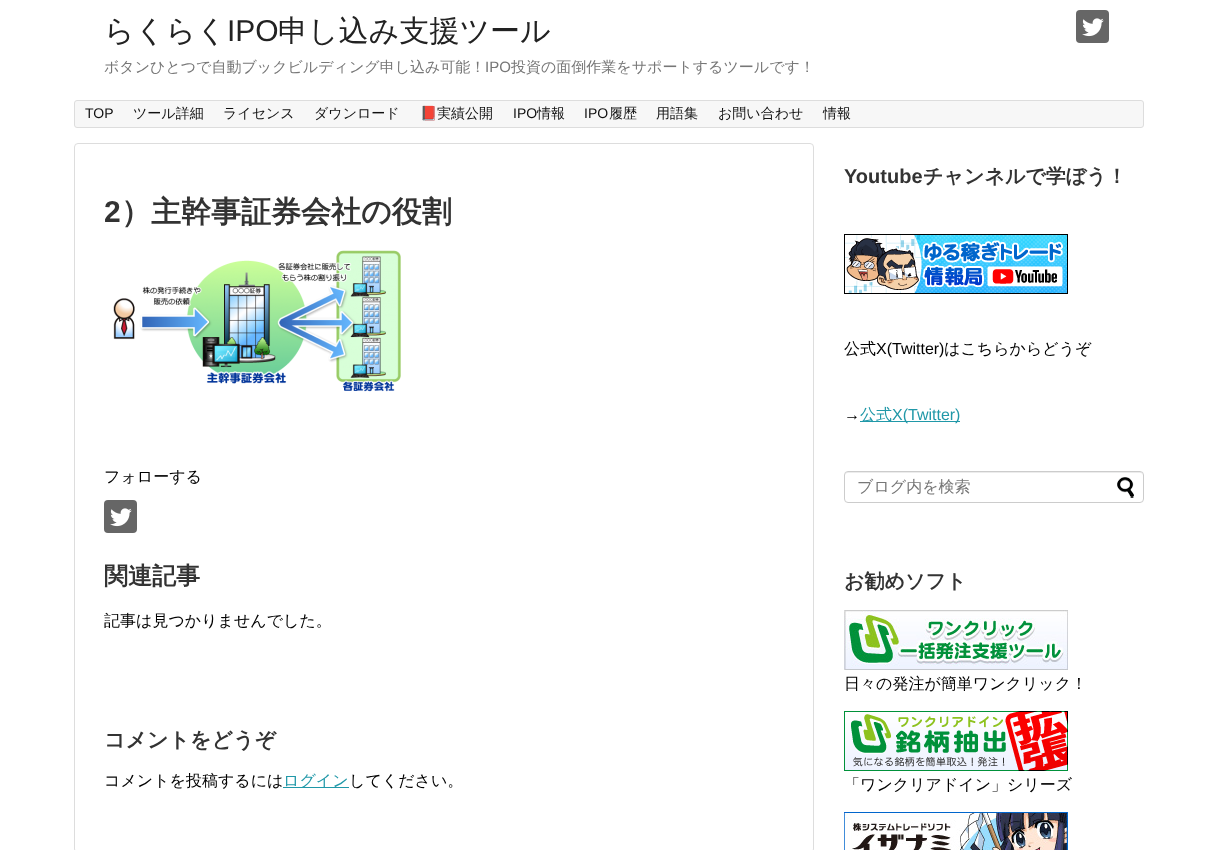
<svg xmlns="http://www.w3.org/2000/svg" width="1218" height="850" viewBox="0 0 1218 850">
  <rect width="100%" height="100%" fill="#ffffff"/>
  <text x="104" y="41" font-family="WenQuanYi Zen Hei" font-size="30" font-weight="500" fill="#222222">らくらく</text>
  <text x="227" y="41" font-family="Liberation Sans" font-size="30" fill="#222222">IPO</text>
  <text x="278" y="41" font-family="WenQuanYi Zen Hei" font-size="30" font-weight="500" fill="#222222">申し込み支援ツール</text>
  <text x="104" y="72" font-family="WenQuanYi Zen Hei" font-size="15" font-weight="500" fill="#777777">ボタンひとつで自動ブックビルディング申し込み可能！</text>
  <text x="485" y="72" font-family="Liberation Sans" font-size="15" fill="#777777">IPO</text>
  <text x="511" y="72" font-family="WenQuanYi Zen Hei" font-size="15" font-weight="500" fill="#777777">投資の面倒作業をサポートするツールです！</text>
  <rect x="1076" y="10" width="33" height="33" rx="4" fill="#666666"/>
  <image x="1082" y="18" width="22" height="19" href="img1.png"/>
  <rect x="74.5" y="100.5" width="1069" height="27" rx="2.5" fill="#f7f7f7" stroke="#dddddd"/>
  <text x="85" y="118" font-family="Liberation Sans" font-size="14" fill="#111111">TOP</text>
  <text x="133" y="118" font-family="WenQuanYi Zen Hei" font-size="14" font-weight="500" fill="#111111">ツール詳細</text>
  <text x="223" y="118" font-family="WenQuanYi Zen Hei" font-size="14" font-weight="500" fill="#111111">ライセンス</text>
  <text x="314" y="118" font-family="WenQuanYi Zen Hei" font-size="14" font-weight="500" fill="#111111">ダウンロード</text>
  <text x="420" y="118" font-family="Noto Color Emoji" font-size="14" fill="#111111">📕</text>
  <text x="437" y="118" font-family="WenQuanYi Zen Hei" font-size="14" font-weight="500" fill="#111111">実績公開</text>
  <text x="513" y="118" font-family="Liberation Sans" font-size="14" fill="#111111">IPO</text>
  <text x="537" y="118" font-family="WenQuanYi Zen Hei" font-size="14" font-weight="500" fill="#111111">情報</text>
  <text x="584" y="118" font-family="Liberation Sans" font-size="14" fill="#111111">IPO</text>
  <text x="609" y="118" font-family="WenQuanYi Zen Hei" font-size="14" font-weight="500" fill="#111111">履歴</text>
  <text x="656" y="118" font-family="WenQuanYi Zen Hei" font-size="14" font-weight="500" fill="#111111">用語集</text>
  <text x="718" y="118" font-family="WenQuanYi Zen Hei" font-size="14" font-weight="500" fill="#111111">お問い合わせ</text>
  <text x="823" y="118" font-family="WenQuanYi Zen Hei" font-size="14" font-weight="500" fill="#111111">情報</text>
  <rect x="74.5" y="143.5" width="739" height="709" rx="3.5" fill="none" stroke="#dddddd"/>
  <text x="104" y="222" font-family="Liberation Sans" font-size="30" font-weight="bold" fill="#333333">2</text>
  <text x="121" y="222" font-family="WenQuanYi Zen Hei" font-size="30" font-weight="bold" fill="#333333">）主幹事証券会社の役割</text>
  <image x="113" y="250" width="288" height="142" href="img2.png"/>
  <text x="104" y="482" font-family="WenQuanYi Zen Hei" font-size="16" font-weight="500" fill="#000000">フォローする</text>
  <rect x="104" y="500" width="33" height="33" rx="4" fill="#666666"/>
  <image x="110" y="508" width="22" height="19" href="img1.png"/>
  <text x="104" y="584" font-family="WenQuanYi Zen Hei" font-size="24" font-weight="bold" fill="#333333">関連記事</text>
  <text x="104" y="626" font-family="WenQuanYi Zen Hei" font-size="16" font-weight="500" fill="#000000">記事は見つかりませんでした。</text>
  <text x="104" y="747" font-family="WenQuanYi Zen Hei" font-size="21" font-weight="bold" fill="#333333">コメントをどうぞ</text>
  <text x="104" y="786" font-family="WenQuanYi Zen Hei" font-size="16" font-weight="500" fill="#000000">コメントを投稿するには</text>
  <rect x="283" y="787" width="66" height="1" fill="#2098a8"/>
  <text x="283" y="786" font-family="WenQuanYi Zen Hei" font-size="16" font-weight="500" fill="#2098a8">ログイン</text>
  <text x="349" y="786" font-family="WenQuanYi Zen Hei" font-size="16" font-weight="500" fill="#000000">してください。</text>
  <text x="844" y="183" font-family="Liberation Sans" font-size="20" font-weight="bold" fill="#333333">Youtube</text>
  <text x="923" y="183" font-family="WenQuanYi Zen Hei" font-size="20" font-weight="bold" fill="#333333">チャンネルで学ぼう！</text>
  <image x="844" y="234" width="224" height="60" href="img3.png"/>
  <text x="844" y="354" font-family="WenQuanYi Zen Hei" font-size="16" font-weight="500" fill="#000000">公式</text>
  <text x="876" y="354" font-family="Liberation Sans" font-size="16" fill="#000000">X(Twitter)</text>
  <text x="944" y="354" font-family="WenQuanYi Zen Hei" font-size="16" font-weight="500" fill="#000000">はこちらからどうぞ</text>
  <text x="844" y="420" font-family="Liberation Sans" font-size="16" fill="#000000">→</text>
  <rect x="860" y="421" width="100" height="1" fill="#2098a8"/>
  <text x="860" y="420" font-family="WenQuanYi Zen Hei" font-size="16" font-weight="500" fill="#2098a8">公式</text>
  <text x="892" y="420" font-family="Liberation Sans" font-size="16" fill="#2098a8">X(Twitter)</text>
  <path d="M848 473H1140C1142 473 1143 474 1143 476L1142 473L1141 472H848C846 472 845 474 845 476C845 474 846 473 848 473Z" fill="#ececec"/>
  <rect x="844.5" y="471.5" width="299" height="31" rx="3.5" fill="none" stroke="#cccccc"/>
  <text x="857" y="492" font-family="WenQuanYi Zen Hei" font-size="16" font-weight="500" fill="#777777">ブログ内を検索</text>
  <image x="1117" y="477" width="17" height="21" href="img4.png"/>
  <text x="844" y="588" font-family="WenQuanYi Zen Hei" font-size="20" font-weight="bold" fill="#333333">お勧めソフト</text>
  <image x="844" y="610" width="224" height="60" href="img5.png"/>
  <text x="844" y="689" font-family="WenQuanYi Zen Hei" font-size="16" font-weight="500" fill="#000000">日々の発注が簡単ワンクリック！</text>
  <image x="844" y="711" width="224" height="60" href="img6.png"/>
  <text x="844" y="790" font-family="WenQuanYi Zen Hei" font-size="16" font-weight="500" fill="#000000">「ワンクリアドイン」シリーズ</text>
  <image x="844" y="812" width="224" height="38" href="img7.png"/>
</svg>
